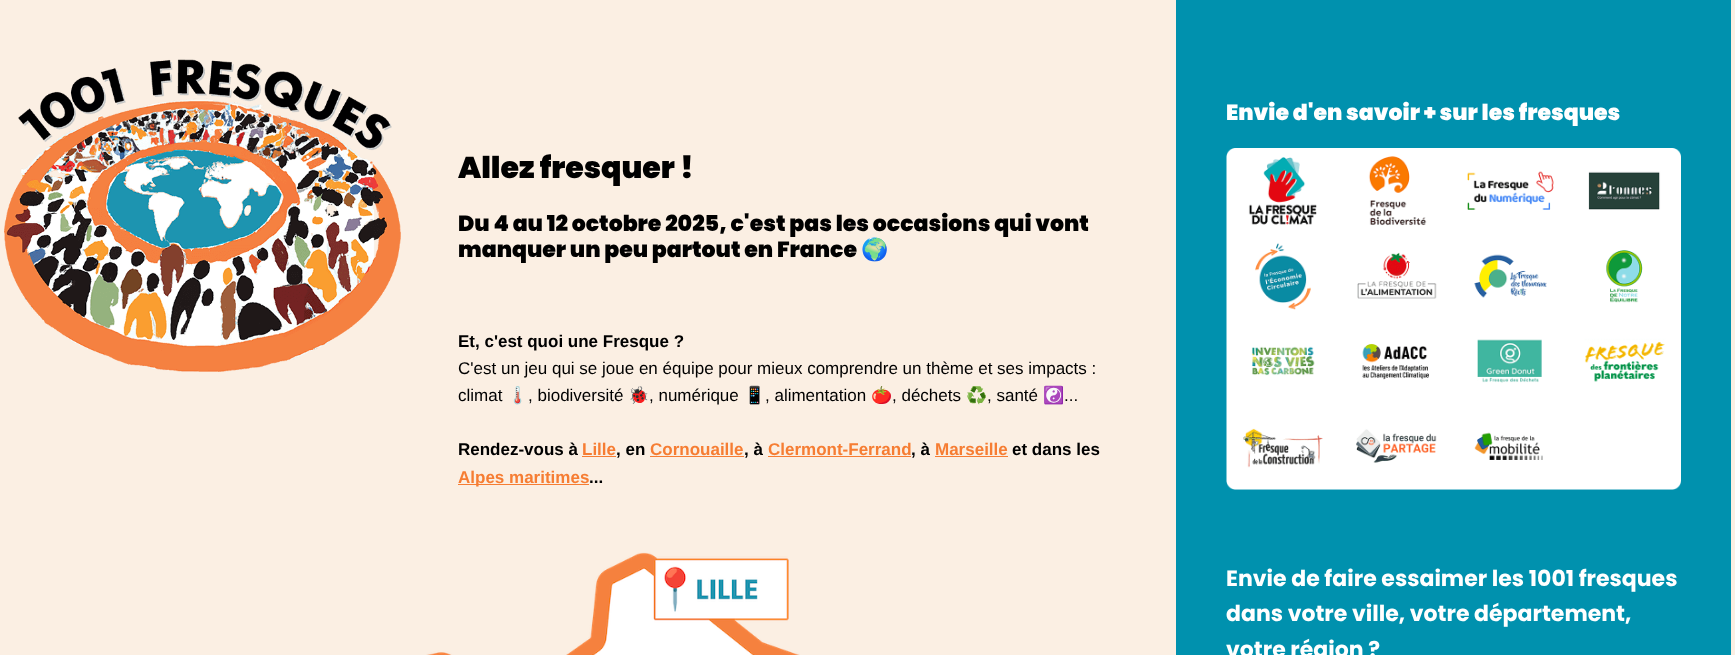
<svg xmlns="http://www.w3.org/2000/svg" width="1735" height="655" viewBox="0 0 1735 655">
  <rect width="100%" height="100%" fill="#fbefe3"/>
  <image x="4" y="59" width="397" height="313" href="img1.png"/>
  <text x="458" y="178" font-family="Poppins" font-size="30" font-weight="900" fill="#000000">Allez fresquer !</text>
  <text x="458" y="231" font-family="Poppins" font-size="22" font-weight="900" fill="#000000">Du 4 au 12 octobre 2025, c'est pas les occasions qui vont</text>
  <text x="458" y="257" font-family="Poppins" font-size="22" font-weight="900" fill="#000000">manquer un peu partout en France</text>
  <text x="861" y="257" font-family="Noto Color Emoji" font-size="22" font-weight="bold" fill="#000000">🌍</text>
  <text x="458" y="347" font-family="Liberation Sans" font-size="17" font-weight="bold" fill="#000000">Et, c'est quoi une Fresque ?</text>
  <text x="458" y="374" font-family="Liberation Sans" font-size="17" fill="#000000">C'est un jeu qui se joue en équipe pour mieux comprendre un thème et ses impacts :</text>
  <text x="458" y="401" font-family="Liberation Sans" font-size="17" fill="#000000">climat</text>
  <text x="507" y="401" font-family="Noto Color Emoji" font-size="17" fill="#000000">🌡️</text>
  <text x="528" y="401" font-family="Liberation Sans" font-size="17" fill="#000000">, biodiversité</text>
  <text x="628" y="401" font-family="Noto Color Emoji" font-size="17" fill="#000000">🐞</text>
  <text x="649" y="401" font-family="Liberation Sans" font-size="17" fill="#000000">, numérique</text>
  <text x="744" y="401" font-family="Noto Color Emoji" font-size="17" fill="#000000">📱</text>
  <text x="765" y="401" font-family="Liberation Sans" font-size="17" fill="#000000">, alimentation</text>
  <text x="871" y="401" font-family="Noto Color Emoji" font-size="17" fill="#000000">🍅</text>
  <text x="892" y="401" font-family="Liberation Sans" font-size="17" fill="#000000">, déchets</text>
  <text x="966" y="401" font-family="Noto Color Emoji" font-size="17" fill="#000000">♻️</text>
  <text x="987" y="401" font-family="Liberation Sans" font-size="17" fill="#000000">, santé</text>
  <text x="1043" y="401" font-family="Noto Color Emoji" font-size="17" fill="#000000">☯️</text>
  <text x="1064" y="401" font-family="Liberation Sans" font-size="17" fill="#000000">...</text>
  <text x="458" y="455" font-family="Liberation Sans" font-size="17" font-weight="bold" fill="#000000">Rendez-vous à</text>
  <text x="582" y="455" font-family="Liberation Sans" font-size="17" font-weight="bold" fill="#f67d33">Lille</text>
  <text x="616" y="455" font-family="Liberation Sans" font-size="17" font-weight="bold" fill="#000000">, en</text>
  <rect x="582" y="456" width="34" height="1" fill="#f67d33"/>
  <text x="650" y="455" font-family="Liberation Sans" font-size="17" font-weight="bold" fill="#f67d33">Cornouaille</text>
  <text x="744" y="455" font-family="Liberation Sans" font-size="17" font-weight="bold" fill="#000000">, à</text>
  <rect x="650" y="456" width="94" height="1" fill="#f67d33"/>
  <text x="768" y="455" font-family="Liberation Sans" font-size="17" font-weight="bold" fill="#f67d33">Clermont-Ferrand</text>
  <text x="911" y="455" font-family="Liberation Sans" font-size="17" font-weight="bold" fill="#000000">, à</text>
  <rect x="768" y="456" width="143" height="1" fill="#f67d33"/>
  <text x="935" y="455" font-family="Liberation Sans" font-size="17" font-weight="bold" fill="#f67d33">Marseille</text>
  <rect x="935" y="456" width="73" height="1" fill="#f67d33"/>
  <text x="1012" y="455" font-family="Liberation Sans" font-size="17" font-weight="bold" fill="#000000">et dans les</text>
  <rect x="458" y="484" width="131" height="1" fill="#f67d33"/>
  <text x="458" y="483" font-family="Liberation Sans" font-size="17" font-weight="bold" fill="#f67d33">Alpes maritimes</text>
  <text x="589" y="483" font-family="Liberation Sans" font-size="17" font-weight="bold" fill="#000000">...</text>
  <image x="426" y="552" width="374" height="103" href="img2.png"/>
  <rect x="1176" y="0" width="555" height="655" fill="#0091ae"/>
  <text x="1226" y="120" font-family="Poppins" font-size="22" font-weight="900" fill="#ffffff">Envie d'en savoir + sur les fresques</text>
  <image x="1226" y="148" width="455" height="342" href="img3.png"/>
  <text x="1226" y="586" font-family="Poppins" font-size="22" font-weight="bold" fill="#ffffff">Envie de faire essaimer les 1001 fresques</text>
  <text x="1226" y="621" font-family="Poppins" font-size="22" font-weight="bold" fill="#ffffff">dans votre ville, votre département,</text>
  <text x="1226" y="657" font-family="Poppins" font-size="22" font-weight="bold" fill="#ffffff">votre région ?</text>
</svg>
